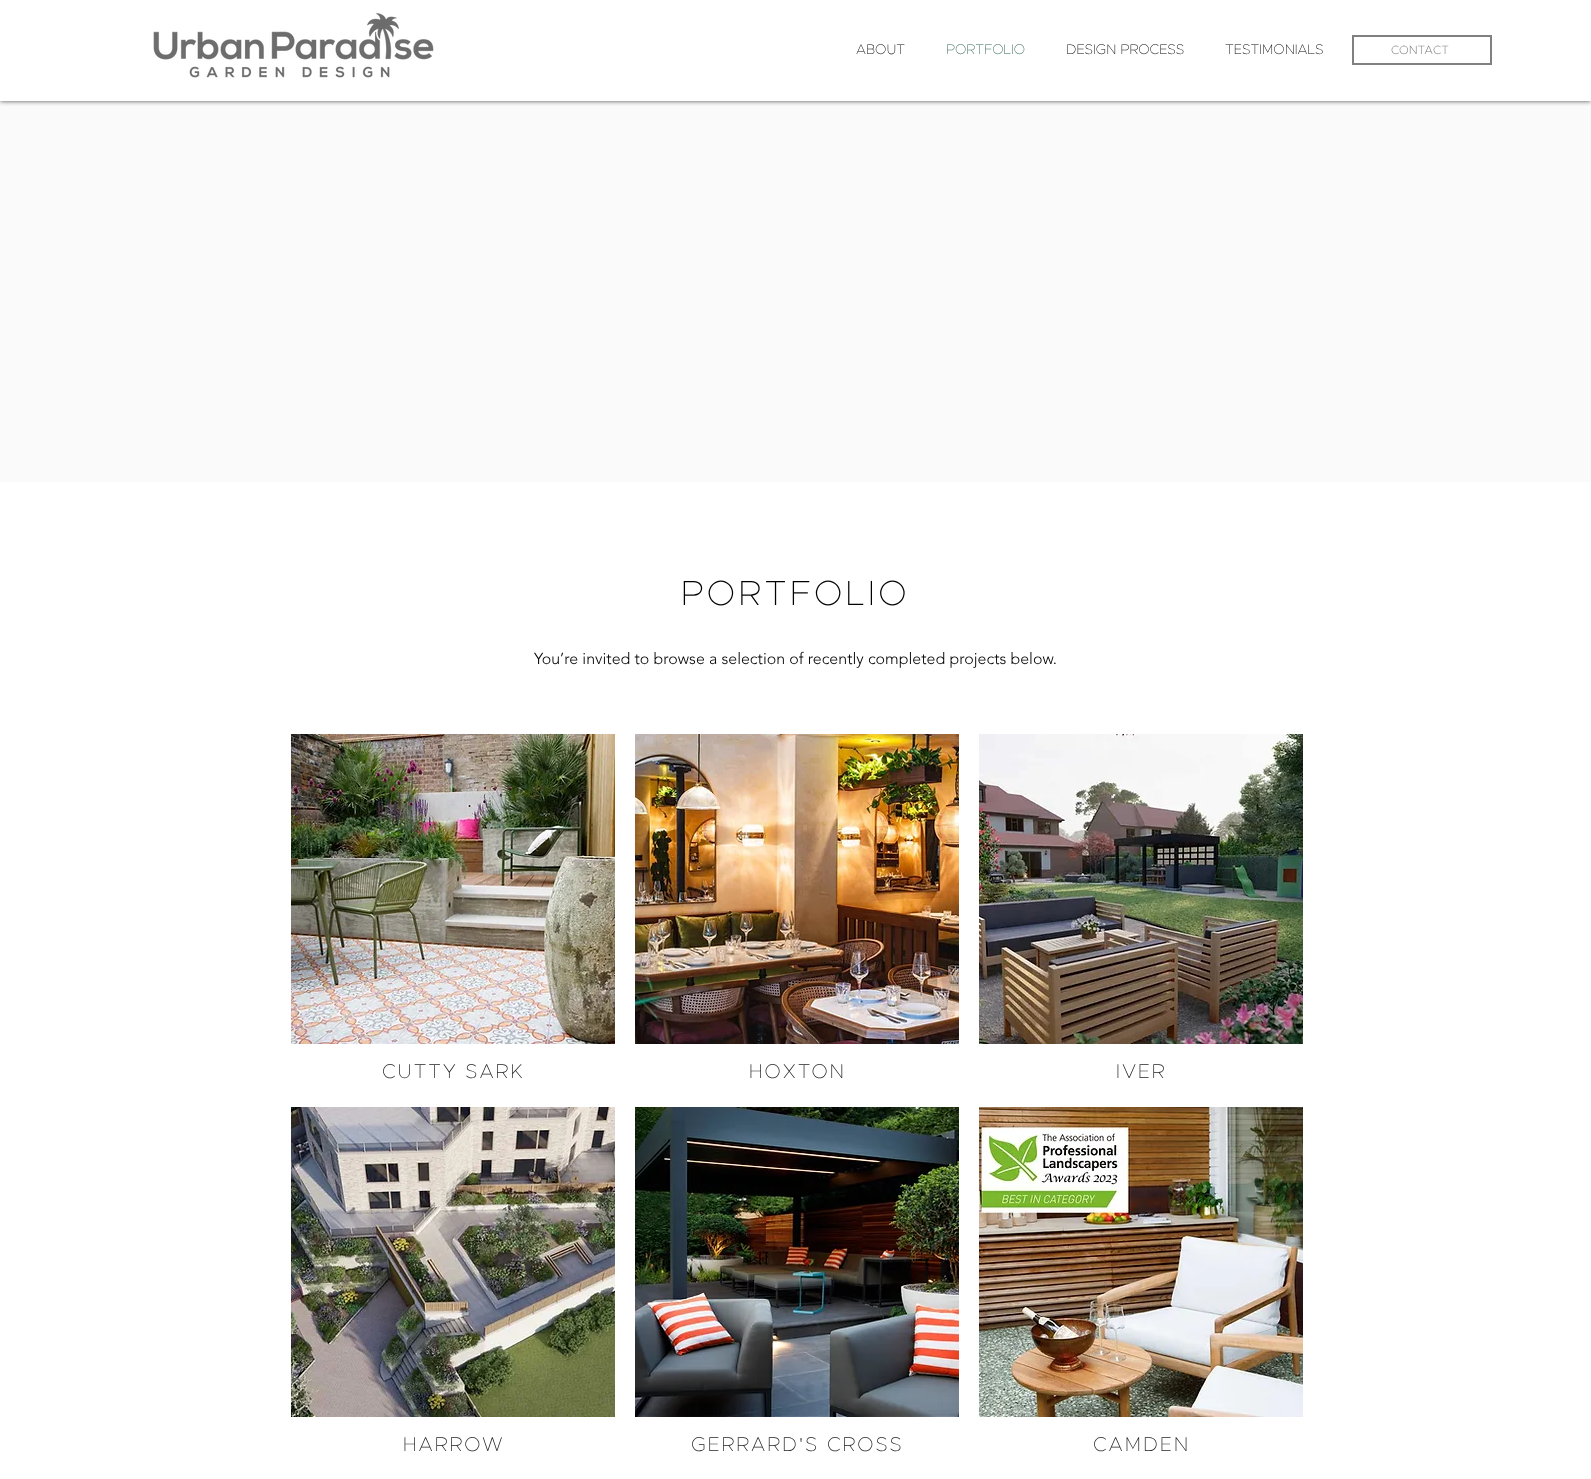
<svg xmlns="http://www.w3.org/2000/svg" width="1591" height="1479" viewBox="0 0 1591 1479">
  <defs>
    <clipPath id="clip1"><rect x="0" y="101" width="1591" height="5"/></clipPath>
    <filter id="blur1" x="-50%" y="-200%" width="200%" height="500%"><feGaussianBlur stdDeviation="2.5"/></filter>
  </defs>
  <rect width="100%" height="100%" fill="#ffffff"/>
  <rect x="0" y="101" width="1591" height="381" fill="#fafafa"/>
  <g clip-path="url(#clip1)">
    <rect x="0" y="0" width="1591" height="101" fill="#000000" fill-opacity="0.7" filter="url(#blur1)"/>
  </g>
  <image x="153" y="12" width="281" height="66" href="img1.png"/>
  <text x="856" y="54" font-family="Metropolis" font-size="14" font-weight="100" fill="#000000">ABOUT</text>
  <text x="946" y="54" font-family="Metropolis" font-size="14" font-weight="100" fill="#326453">PORTFOLIO</text>
  <text x="1066" y="54" font-family="Metropolis" font-size="14" font-weight="100" fill="#000000">DESIGN PROCESS</text>
  <text x="1225" y="54" font-family="Metropolis" font-size="14" font-weight="100" fill="#000000">TESTIMONIALS</text>
  <rect x="1353" y="36" width="138" height="28" fill="none" stroke="#808080" stroke-width="2"/>
  <text x="1391" y="54" font-family="Metropolis" font-size="12" font-weight="200" fill="#808080">CONTACT</text>
  <text x="681" y="605" font-family="Metropolis" font-size="35" font-weight="100" letter-spacing="3.5" fill="#000000">PORTFOLIO</text>
  <text x="534" y="664" font-family="'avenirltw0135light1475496'" font-size="16" font-weight="300" fill="#000000">You’re invited to browse a selection of recently completed projects below.</text>
  <image x="291" y="734" width="324" height="310" href="img2.png"/>
  <text x="382" y="1078" font-family="Metropolis" font-size="20" font-weight="100" letter-spacing="2" fill="#1e1e1e">CUTTY SARK</text>
  <image x="291" y="1107" width="324" height="310" href="img3.png"/>
  <text x="403" y="1451" font-family="Metropolis" font-size="20" font-weight="100" letter-spacing="2" fill="#1e1e1e">HARROW</text>
  <image x="635" y="734" width="324" height="310" href="img4.png"/>
  <text x="749" y="1078" font-family="Metropolis" font-size="20" font-weight="100" letter-spacing="2" fill="#1e1e1e">HOXTON</text>
  <image x="635" y="1107" width="324" height="310" href="img5.png"/>
  <text x="691" y="1451" font-family="Metropolis" font-size="20" font-weight="100" letter-spacing="2" fill="#1e1e1e">GERRARD'S CROSS</text>
  <image x="979" y="734" width="324" height="310" href="img6.png"/>
  <text x="1116" y="1078" font-family="Metropolis" font-size="20" font-weight="100" letter-spacing="2" fill="#1e1e1e">IVER</text>
  <image x="979" y="1107" width="324" height="310" href="img7.png"/>
  <text x="1093" y="1451" font-family="Metropolis" font-size="20" font-weight="100" letter-spacing="2" fill="#1e1e1e">CAMDEN</text>
</svg>
